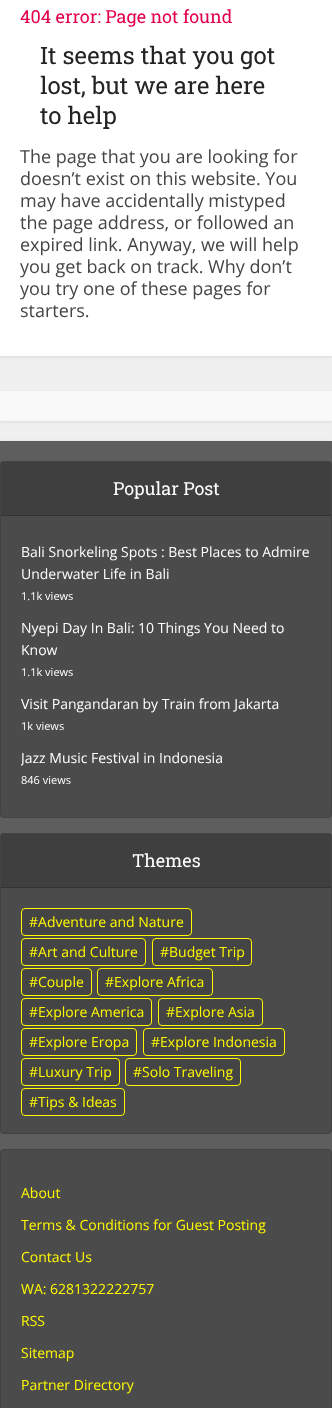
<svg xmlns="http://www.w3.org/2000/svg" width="332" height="1408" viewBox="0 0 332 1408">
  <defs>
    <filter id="blur1" x="-50%" y="-200%" width="200%" height="500%"><feGaussianBlur stdDeviation="1.5"/></filter>
    <filter id="blur2" x="-50%" y="-200%" width="200%" height="500%"><feGaussianBlur stdDeviation="2"/></filter>
    <clipPath id="clip1"><rect x="21" y="742" width="290" height="54"/></clipPath>
  </defs>
  <rect width="100%" height="100%" fill="#f0f0f0"/>
  <rect x="0" y="-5" width="332" height="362" fill="#000000" fill-opacity="0.1" filter="url(#blur1)"/>
  <rect x="0" y="0" width="332" height="356" fill="#ffffff"/>
  <text x="20" y="23" font-family="Roboto Slab" font-size="18" fill="#e2004b">404 error: Page not found</text>
  <text x="40" y="64" font-family="Roboto Slab" font-size="24" fill="#232323">It seems that you got</text>
  <text x="40" y="94" font-family="Roboto Slab" font-size="24" fill="#232323">lost, but we are here</text>
  <text x="40" y="124" font-family="Roboto Slab" font-size="24" fill="#232323">to help</text>
  <text x="20" y="163" font-family="Open Sans" font-size="18" fill="#444444">The page that you are looking for</text>
  <text x="20" y="185" font-family="Open Sans" font-size="18" fill="#444444">doesn’t exist on this website. You</text>
  <text x="20" y="207" font-family="Open Sans" font-size="18" fill="#444444">may have accidentally mistyped</text>
  <text x="20" y="229" font-family="Open Sans" font-size="18" fill="#444444">the page address, or followed an</text>
  <text x="20" y="251" font-family="Open Sans" font-size="18" fill="#444444">expired link. Anyway, we will help</text>
  <text x="20" y="273" font-family="Open Sans" font-size="18" fill="#444444">you get back on track. Why don’t</text>
  <text x="20" y="295" font-family="Open Sans" font-size="18" fill="#444444">you try one of these pages for</text>
  <text x="20" y="317" font-family="Open Sans" font-size="18" fill="#444444">starters.</text>
  <rect x="0" y="392" width="332" height="30" fill="#000000" fill-opacity="0.1" filter="url(#blur1)"/>
  <rect x="0" y="391" width="332" height="30" fill="#f9f9f9"/>
  <rect x="0" y="443" width="332" height="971" fill="#000000" fill-opacity="0.2" filter="url(#blur2)"/>
  <rect x="0" y="441" width="332" height="712" fill="#5e5e5e"/>
  <rect x="0" y="461" width="332" height="357" rx="4" fill="#4b4b4b"/>
  <rect x="0.5" y="461.5" width="331" height="356" rx="3.5" fill="none" stroke="#000000" stroke-opacity="0.1"/>
  <rect x="1" y="462" width="330" height="53" fill="#000000" fill-opacity="0.15"/>
  <rect x="1" y="515" width="330" height="1" fill="#333333"/>
  <text x="113" y="495" font-family="Roboto Slab" font-size="18" fill="#ffffff">Popular Post</text>
  <text x="21" y="557" font-family="Open Sans" font-size="14" fill="#ffffff">Bali Snorkeling Spots : Best Places to Admire</text>
  <text x="21" y="579" font-family="Open Sans" font-size="14" fill="#ffffff">Underwater Life in Bali</text>
  <text x="21" y="600" font-family="Open Sans" font-size="11" fill="#ffffff">1.1k views</text>
  <text x="21" y="633" font-family="Open Sans" font-size="14" fill="#ffffff">Nyepi Day In Bali: 10 Things You Need to</text>
  <text x="21" y="655" font-family="Open Sans" font-size="14" fill="#ffffff">Know</text>
  <text x="21" y="676" font-family="Open Sans" font-size="11" fill="#ffffff">1.1k views</text>
  <text x="21" y="709" font-family="Open Sans" font-size="14" fill="#ffffff">Visit Pangandaran by Train from Jakarta</text>
  <text x="21" y="730" font-family="Open Sans" font-size="11" fill="#ffffff">1k views</text>
  <g clip-path="url(#clip1)">
    <text x="21" y="763" font-family="Open Sans" font-size="14" fill="#ffffff">Jazz Music Festival in Indonesia</text>
  </g>
  <text x="21" y="784" font-family="Open Sans" font-size="11" fill="#ffffff">846 views</text>
  <rect x="0" y="833" width="332" height="301" rx="4" fill="#4b4b4b"/>
  <rect x="0.5" y="833.5" width="331" height="300" rx="3.5" fill="none" stroke="#000000" stroke-opacity="0.1"/>
  <rect x="1" y="834" width="330" height="53" fill="#000000" fill-opacity="0.15"/>
  <rect x="1" y="887" width="330" height="1" fill="#333333"/>
  <text x="132" y="867" font-family="Roboto Slab" font-size="18" fill="#ffffff">Themes</text>
  <rect x="21.5" y="908.5" width="170" height="27" rx="3.5" fill="#444444" stroke="#fffa00"/>
  <text x="29" y="927" font-family="Open Sans" font-size="14" fill="#fffa00">#Adventure and Nature</text>
  <rect x="21.5" y="938.5" width="124" height="27" rx="3.5" fill="#444444" stroke="#fffa00"/>
  <text x="29" y="957" font-family="Open Sans" font-size="14" fill="#fffa00">#Art and Culture</text>
  <rect x="152.5" y="938.5" width="99" height="27" rx="3.5" fill="#444444" stroke="#fffa00"/>
  <text x="160" y="957" font-family="Open Sans" font-size="14" fill="#fffa00">#Budget Trip</text>
  <rect x="21.5" y="968.5" width="70" height="27" rx="3.5" fill="#444444" stroke="#fffa00"/>
  <text x="29" y="987" font-family="Open Sans" font-size="14" fill="#fffa00">#Couple</text>
  <rect x="97.5" y="968.5" width="115" height="27" rx="3.5" fill="#444444" stroke="#fffa00"/>
  <text x="105" y="987" font-family="Open Sans" font-size="14" fill="#fffa00">#Explore Africa</text>
  <rect x="21.5" y="998.5" width="130" height="27" rx="3.5" fill="#444444" stroke="#fffa00"/>
  <text x="29" y="1017" font-family="Open Sans" font-size="14" fill="#fffa00">#Explore America</text>
  <rect x="158.5" y="998.5" width="104" height="27" rx="3.5" fill="#444444" stroke="#fffa00"/>
  <text x="166" y="1017" font-family="Open Sans" font-size="14" fill="#fffa00">#Explore Asia</text>
  <rect x="21.5" y="1028.5" width="115" height="27" rx="3.5" fill="#444444" stroke="#fffa00"/>
  <text x="29" y="1047" font-family="Open Sans" font-size="14" fill="#fffa00">#Explore Eropa</text>
  <rect x="143.5" y="1028.5" width="141" height="27" rx="3.5" fill="#444444" stroke="#fffa00"/>
  <text x="151" y="1047" font-family="Open Sans" font-size="14" fill="#fffa00">#Explore Indonesia</text>
  <rect x="21.5" y="1058.5" width="98" height="27" rx="3.5" fill="#444444" stroke="#fffa00"/>
  <text x="29" y="1077" font-family="Open Sans" font-size="14" fill="#fffa00">#Luxury Trip</text>
  <rect x="125.5" y="1058.5" width="115" height="27" rx="3.5" fill="#444444" stroke="#fffa00"/>
  <text x="133" y="1077" font-family="Open Sans" font-size="14" fill="#fffa00">#Solo Traveling</text>
  <rect x="21.5" y="1088.5" width="103" height="27" rx="3.5" fill="#444444" stroke="#fffa00"/>
  <text x="29" y="1107" font-family="Open Sans" font-size="14" fill="#fffa00">#Tips &amp; Ideas</text>
  <rect x="0" y="1149" width="332" height="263" rx="4" fill="#4b4b4b"/>
  <rect x="0.5" y="1149.5" width="331" height="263" rx="3.5" fill="none" stroke="#000000" stroke-opacity="0.1"/>
  <text x="21" y="1198" font-family="Open Sans" font-size="14" fill="#fffa00">About</text>
  <text x="21" y="1230" font-family="Open Sans" font-size="14" fill="#fffa00">Terms &amp; Conditions for Guest Posting</text>
  <text x="21" y="1262" font-family="Open Sans" font-size="14" fill="#fffa00">Contact Us</text>
  <text x="21" y="1294" font-family="Open Sans" font-size="14" fill="#fffa00">WA: 6281322222757</text>
  <text x="21" y="1326" font-family="Open Sans" font-size="14" fill="#fffa00">RSS</text>
  <text x="21" y="1358" font-family="Open Sans" font-size="14" fill="#fffa00">Sitemap</text>
  <text x="21" y="1390" font-family="Open Sans" font-size="14" fill="#fffa00">Partner Directory</text>
</svg>
